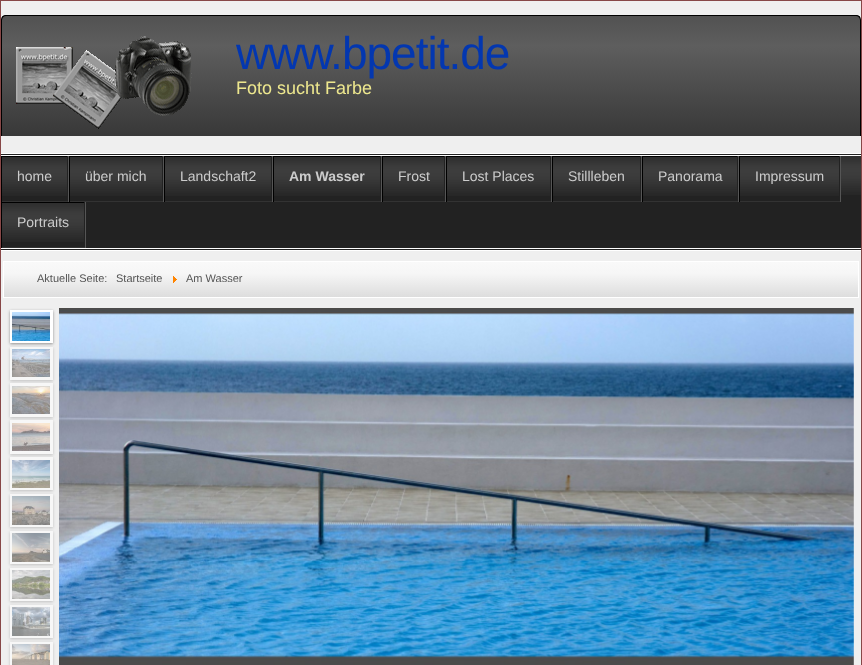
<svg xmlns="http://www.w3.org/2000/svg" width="862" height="665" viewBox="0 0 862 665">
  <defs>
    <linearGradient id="g1" gradientUnits="userSpaceOnUse" x1="431" y1="16" x2="431" y2="136"><stop offset="0" stop-color="#525252"/><stop offset="0.25" stop-color="#5e5e5e"/><stop offset="1" stop-color="#383838"/></linearGradient>
    <linearGradient id="g2" gradientUnits="userSpaceOnUse" x1="431" y1="262" x2="431" y2="297"><stop offset="0" stop-color="#f9f9f9"/><stop offset="0.33" stop-color="#f6f6f6"/><stop offset="1" stop-color="#dddddd"/></linearGradient>
    <filter id="blur1" x="-50%" y="-200%" width="200%" height="500%"><feGaussianBlur stdDeviation="1.5"/></filter>
  </defs>
  <rect width="100%" height="100%" fill="#efefef"/>
  <rect x="0.5" y="0.5" width="861" height="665" fill="none" stroke="#874747"/>
  <rect x="2" y="16" width="858" height="120" fill="url(#g1)"/>
  <path d="M6 15H856C859 15 861 17 861 20V136H1V20C1 17 3 15 6 15ZM6 16H856C858 16 860 18 860 20V136H2V20C2 18 4 16 6 16Z" fill="#000000" fill-rule="evenodd"/>
  <image x="16" y="36" width="176" height="93" href="img1.png"/>
  <text x="236" y="69" font-family="Liberation Sans" font-size="46" letter-spacing="-1" fill="#0337b0">www.bpetit.de</text>
  <text x="236" y="94" font-family="Liberation Sans" font-size="18" fill="#ede78e">Foto sucht Farbe</text>
  <rect x="1" y="154" width="860" height="96" fill="#222222"/>
  <image x="841" y="156" width="20" height="39" href="img2.png"/>
  <rect x="1" y="153" width="860" height="1" fill="#ffffff"/>
  <rect x="1" y="155" width="860" height="1" fill="#ffffff"/>
  <rect x="1" y="248" width="860" height="1" fill="#ffffff"/>
  <rect x="1" y="250" width="860" height="1" fill="#ffffff"/>
  <rect x="68" y="156" width="1" height="46" fill="#555555"/>
  <image x="2" y="157" width="65" height="39" href="img3.png"/>
  <rect x="1" y="156" width="67" height="1" fill="#000000"/>
  <rect x="67" y="156" width="1" height="1" fill="#222222"/>
  <rect x="1" y="201" width="67" height="1" fill="#333333"/>
  <rect x="1" y="156" width="1" height="46" fill="#000000"/>
  <text x="17" y="181" font-family="Liberation Sans" font-size="14" fill="#cccccc">home</text>
  <rect x="163" y="156" width="1" height="46" fill="#555555"/>
  <image x="70" y="157" width="92" height="39" href="img4.png"/>
  <rect x="69" y="156" width="94" height="1" fill="#000000"/>
  <rect x="162" y="156" width="1" height="1" fill="#222222"/>
  <rect x="69" y="201" width="94" height="1" fill="#333333"/>
  <rect x="69" y="156" width="1" height="46" fill="#000000"/>
  <text x="85" y="181" font-family="Liberation Sans" font-size="14" fill="#cccccc">über mich</text>
  <rect x="272" y="156" width="1" height="46" fill="#555555"/>
  <image x="165" y="157" width="106" height="39" href="img5.png"/>
  <rect x="164" y="156" width="108" height="1" fill="#000000"/>
  <rect x="271" y="156" width="1" height="1" fill="#222222"/>
  <rect x="164" y="201" width="108" height="1" fill="#333333"/>
  <rect x="164" y="156" width="1" height="46" fill="#000000"/>
  <text x="180" y="181" font-family="Liberation Sans" font-size="14" fill="#cccccc">Landschaft2</text>
  <rect x="381" y="156" width="1" height="46" fill="#555555"/>
  <image x="274" y="157" width="106" height="39" href="img5.png"/>
  <rect x="273" y="156" width="108" height="1" fill="#000000"/>
  <rect x="380" y="156" width="1" height="1" fill="#222222"/>
  <rect x="273" y="201" width="108" height="1" fill="#333333"/>
  <rect x="273" y="156" width="1" height="46" fill="#000000"/>
  <text x="289" y="181" font-family="Liberation Sans" font-size="14" font-weight="bold" fill="#cccccc">Am Wasser</text>
  <rect x="445" y="156" width="1" height="46" fill="#555555"/>
  <image x="383" y="157" width="61" height="39" href="img6.png"/>
  <rect x="382" y="156" width="63" height="1" fill="#000000"/>
  <rect x="444" y="156" width="1" height="1" fill="#222222"/>
  <rect x="382" y="201" width="63" height="1" fill="#333333"/>
  <rect x="382" y="156" width="1" height="46" fill="#000000"/>
  <text x="398" y="181" font-family="Liberation Sans" font-size="14" fill="#cccccc">Frost</text>
  <rect x="551" y="156" width="1" height="46" fill="#555555"/>
  <image x="447" y="157" width="103" height="39" href="img7.png"/>
  <rect x="446" y="156" width="105" height="1" fill="#000000"/>
  <rect x="550" y="156" width="1" height="1" fill="#222222"/>
  <rect x="446" y="201" width="105" height="1" fill="#333333"/>
  <rect x="446" y="156" width="1" height="46" fill="#000000"/>
  <text x="462" y="181" font-family="Liberation Sans" font-size="14" fill="#cccccc">Lost Places</text>
  <rect x="641" y="156" width="1" height="46" fill="#555555"/>
  <image x="553" y="157" width="87" height="39" href="img8.png"/>
  <rect x="552" y="156" width="89" height="1" fill="#000000"/>
  <rect x="640" y="156" width="1" height="1" fill="#222222"/>
  <rect x="552" y="201" width="89" height="1" fill="#333333"/>
  <rect x="552" y="156" width="1" height="46" fill="#000000"/>
  <text x="568" y="181" font-family="Liberation Sans" font-size="14" fill="#cccccc">Stillleben</text>
  <rect x="738" y="156" width="1" height="46" fill="#555555"/>
  <image x="643" y="157" width="94" height="39" href="img9.png"/>
  <rect x="642" y="156" width="96" height="1" fill="#000000"/>
  <rect x="737" y="156" width="1" height="1" fill="#222222"/>
  <rect x="642" y="201" width="96" height="1" fill="#333333"/>
  <rect x="642" y="156" width="1" height="46" fill="#000000"/>
  <text x="658" y="181" font-family="Liberation Sans" font-size="14" fill="#cccccc">Panorama</text>
  <rect x="840" y="156" width="1" height="46" fill="#555555"/>
  <image x="740" y="157" width="99" height="39" href="img10.png"/>
  <rect x="739" y="156" width="101" height="1" fill="#000000"/>
  <rect x="839" y="156" width="1" height="1" fill="#222222"/>
  <rect x="739" y="201" width="101" height="1" fill="#333333"/>
  <rect x="739" y="156" width="1" height="46" fill="#000000"/>
  <text x="755" y="181" font-family="Liberation Sans" font-size="14" fill="#cccccc">Impressum</text>
  <rect x="85" y="202" width="1" height="46" fill="#555555"/>
  <image x="2" y="203" width="82" height="39" href="img11.png"/>
  <rect x="1" y="202" width="84" height="1" fill="#000000"/>
  <rect x="84" y="202" width="1" height="1" fill="#222222"/>
  <rect x="1" y="247" width="84" height="1" fill="#333333"/>
  <rect x="1" y="202" width="1" height="46" fill="#000000"/>
  <text x="17" y="227" font-family="Liberation Sans" font-size="14" fill="#cccccc">Portraits</text>
  <rect x="4" y="262" width="854" height="35" fill="url(#g2)"/>
  <rect x="3.5" y="261.5" width="855" height="36" fill="none" stroke="#ffffff"/>
  <text x="37" y="282" font-family="Liberation Sans" font-size="11" fill="#555555">Aktuelle Seite:</text>
  <text x="116" y="282" font-family="Liberation Sans" font-size="11" fill="#555555">Startseite</text>
  <image x="173" y="276" width="4" height="7" href="img12.png"/>
  <text x="186" y="282" font-family="Liberation Sans" font-size="11" fill="#555555">Am Wasser</text>
  <rect x="10" y="311" width="43" height="33" fill="#000000" fill-opacity="0.4" filter="url(#blur1)"/>
  <rect x="10" y="310" width="43" height="33" fill="#ffffff"/>
  <image x="12" y="312" width="38" height="29" href="img13.png"/>
  <rect x="10" y="348" width="43" height="33" fill="#000000" fill-opacity="0.2" filter="url(#blur1)"/>
  <rect x="10" y="347" width="43" height="33" fill="#f7f7f7"/>
  <image x="12" y="349" width="38" height="28" href="img14.png"/>
  <rect x="10" y="384" width="43" height="34" fill="#000000" fill-opacity="0.2" filter="url(#blur1)"/>
  <rect x="10" y="383" width="43" height="34" fill="#f7f7f7"/>
  <image x="12" y="386" width="38" height="28" href="img15.png"/>
  <rect x="10" y="421" width="43" height="34" fill="#000000" fill-opacity="0.2" filter="url(#blur1)"/>
  <rect x="10" y="420" width="43" height="34" fill="#f7f7f7"/>
  <image x="12" y="423" width="38" height="28" href="img16.png"/>
  <rect x="10" y="458" width="43" height="33" fill="#000000" fill-opacity="0.2" filter="url(#blur1)"/>
  <rect x="10" y="457" width="43" height="33" fill="#f7f7f7"/>
  <image x="12" y="460" width="38" height="28" href="img17.png"/>
  <rect x="10" y="495" width="43" height="33" fill="#000000" fill-opacity="0.2" filter="url(#blur1)"/>
  <rect x="10" y="494" width="43" height="33" fill="#f7f7f7"/>
  <image x="12" y="496" width="38" height="29" href="img18.png"/>
  <rect x="10" y="532" width="43" height="33" fill="#000000" fill-opacity="0.2" filter="url(#blur1)"/>
  <rect x="10" y="531" width="43" height="33" fill="#f7f7f7"/>
  <image x="12" y="533" width="38" height="29" href="img19.png"/>
  <rect x="10" y="569" width="43" height="33" fill="#000000" fill-opacity="0.2" filter="url(#blur1)"/>
  <rect x="10" y="568" width="43" height="33" fill="#f7f7f7"/>
  <image x="12" y="570" width="38" height="29" href="img20.png"/>
  <rect x="10" y="606" width="43" height="33" fill="#000000" fill-opacity="0.2" filter="url(#blur1)"/>
  <rect x="10" y="605" width="43" height="33" fill="#f7f7f7"/>
  <image x="12" y="607" width="38" height="29" href="img21.png"/>
  <rect x="10" y="643" width="43" height="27" fill="#000000" fill-opacity="0.2" filter="url(#blur1)"/>
  <rect x="10" y="642" width="43" height="23" fill="#f7f7f7"/>
  <image x="12" y="644" width="38" height="21" href="img22.png"/>
  <image x="59" y="308" width="795" height="357" href="img23.png"/>
</svg>
